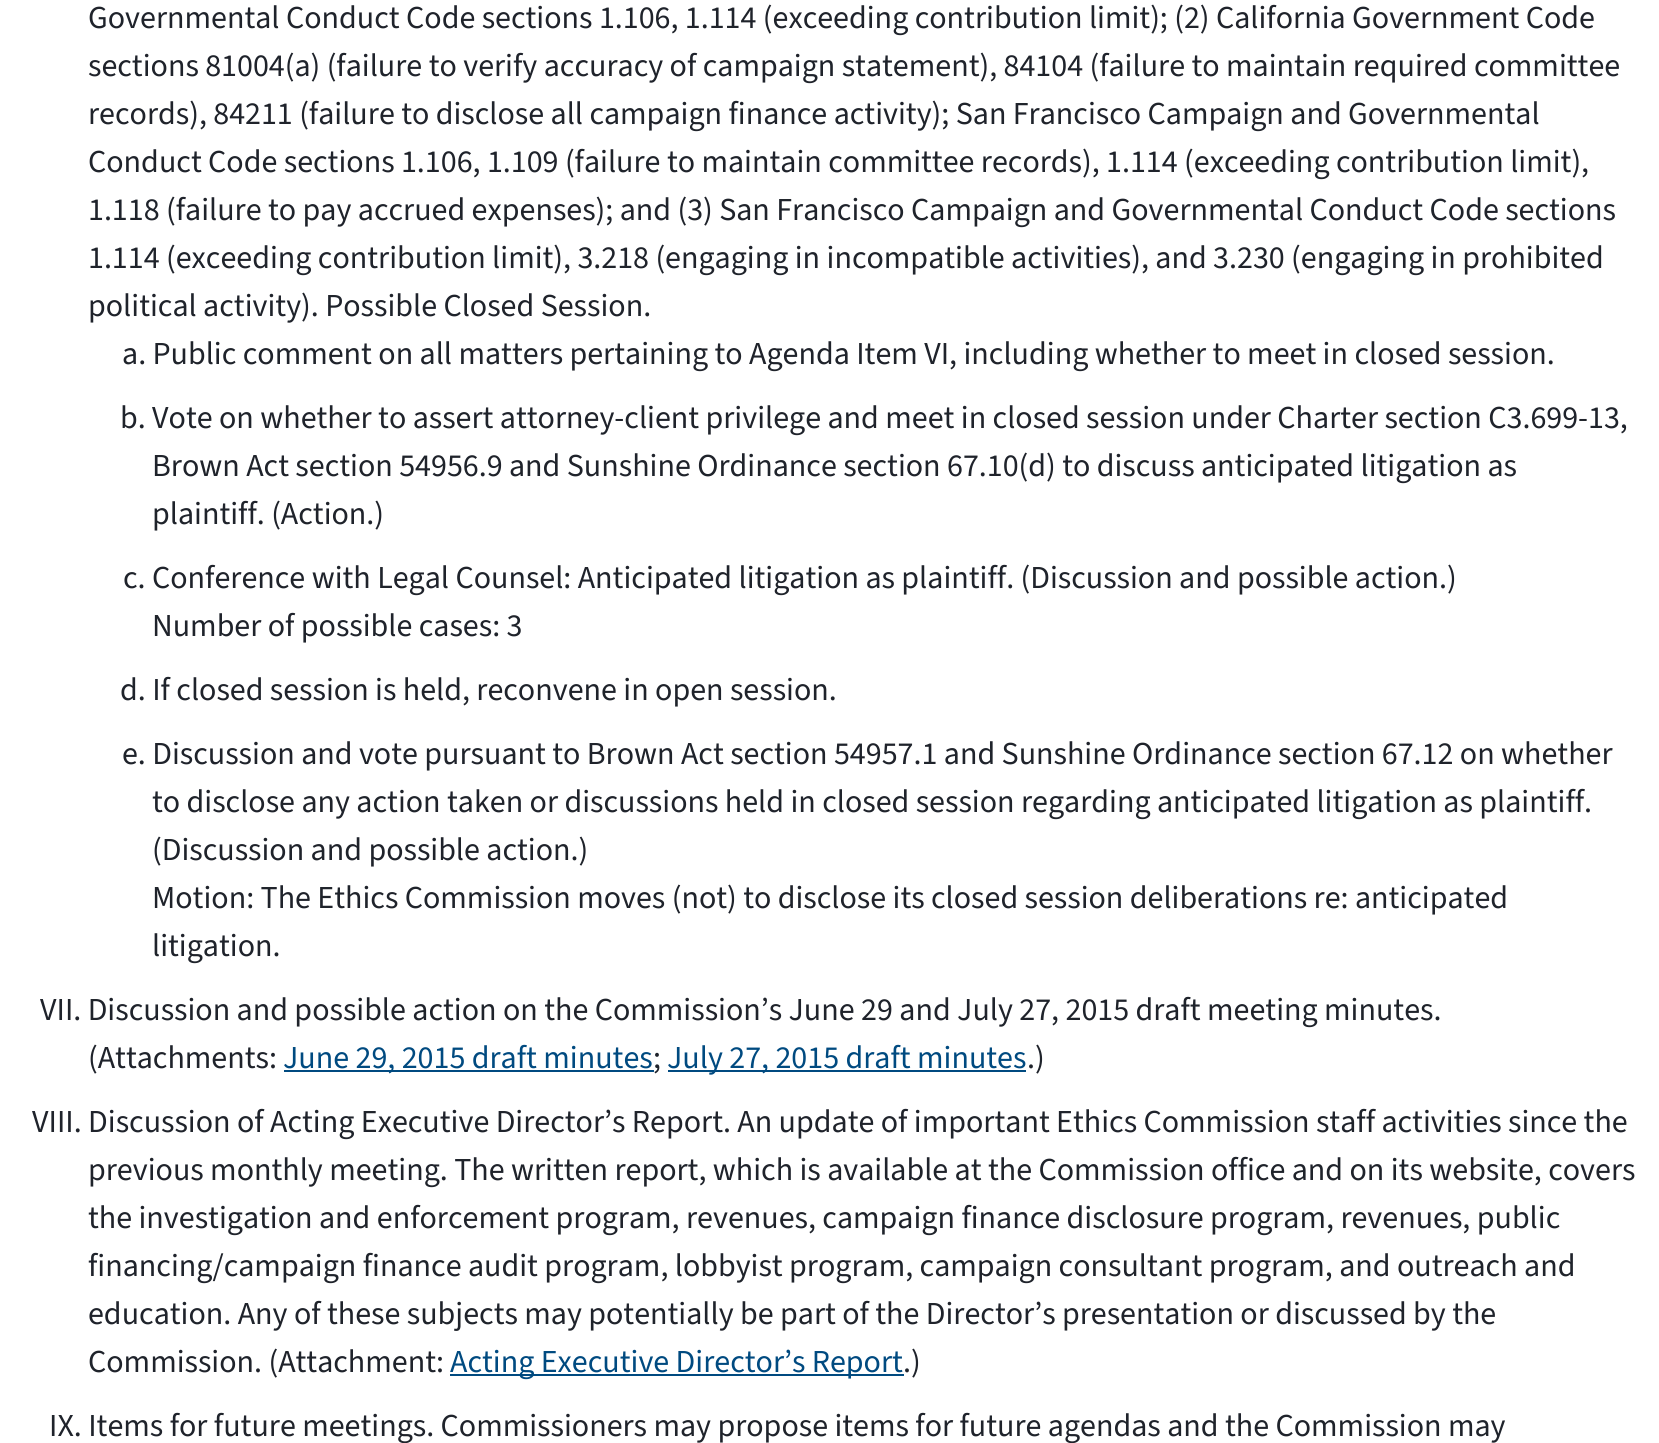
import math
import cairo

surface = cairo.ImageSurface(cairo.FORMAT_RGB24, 1659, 1443)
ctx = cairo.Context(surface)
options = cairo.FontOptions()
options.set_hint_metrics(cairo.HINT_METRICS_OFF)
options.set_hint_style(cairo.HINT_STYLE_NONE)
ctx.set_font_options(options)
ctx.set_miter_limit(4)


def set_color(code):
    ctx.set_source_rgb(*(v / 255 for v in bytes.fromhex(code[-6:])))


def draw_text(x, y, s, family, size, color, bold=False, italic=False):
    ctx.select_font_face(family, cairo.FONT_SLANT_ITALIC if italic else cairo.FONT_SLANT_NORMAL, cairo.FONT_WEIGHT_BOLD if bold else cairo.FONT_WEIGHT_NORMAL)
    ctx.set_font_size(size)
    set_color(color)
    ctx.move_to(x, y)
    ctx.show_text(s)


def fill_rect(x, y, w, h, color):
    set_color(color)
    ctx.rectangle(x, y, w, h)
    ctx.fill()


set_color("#ffffff")
ctx.paint()
draw_text(88, 28, "Governmental Conduct Code sections 1.106, 1.114 (exceeding contribution limit); (2) California Government Code", "Source Sans 3", 32, "#1f232b")
draw_text(88, 76, "sections 81004(a) (failure to verify accuracy of campaign statement), 84104 (failure to maintain required committee", "Source Sans 3", 32, "#1f232b")
draw_text(88, 124, "records), 84211 (failure to disclose all campaign finance activity); San Francisco Campaign and Governmental", "Source Sans 3", 32, "#1f232b")
draw_text(88, 172, "Conduct Code sections 1.106, 1.109 (failure to maintain committee records), 1.114 (exceeding contribution limit),", "Source Sans 3", 32, "#1f232b")
draw_text(88, 220, "1.118 (failure to pay accrued expenses); and (3) San Francisco Campaign and Governmental Conduct Code sections", "Source Sans 3", 32, "#1f232b")
draw_text(88, 268, "1.114 (exceeding contribution limit), 3.218 (engaging in incompatible activities), and 3.230 (engaging in prohibited", "Source Sans 3", 32, "#1f232b")
draw_text(88, 316, "political activity). Possible Closed Session.", "Source Sans 3", 32, "#1f232b")
draw_text(122, 364, "a. Public comment on all matters pertaining to Agenda Item VI, including whether to meet in closed session.", "Source Sans 3", 32, "#1f232b")
draw_text(120, 428, "b. Vote on whether to assert attorney-client privilege and meet in closed session under Charter section C3.699-13,", "Source Sans 3", 32, "#1f232b")
draw_text(152, 476, "Brown Act section 54956.9 and Sunshine Ordinance section 67.10(d) to discuss anticipated litigation as", "Source Sans 3", 32, "#1f232b")
draw_text(152, 524, "plaintiff. (Action.)", "Source Sans 3", 32, "#1f232b")
draw_text(123, 588, "c. Conference with Legal Counsel: Anticipated litigation as plaintiff. (Discussion and possible action.)", "Source Sans 3", 32, "#1f232b")
draw_text(152, 636, "Number of possible cases: 3", "Source Sans 3", 32, "#1f232b")
draw_text(120, 700, "d. If closed session is held, reconvene in open session.", "Source Sans 3", 32, "#1f232b")
draw_text(122, 764, "e. Discussion and vote pursuant to Brown Act section 54957.1 and Sunshine Ordinance section 67.12 on whether", "Source Sans 3", 32, "#1f232b")
draw_text(152, 812, "to disclose any action taken or discussions held in closed session regarding anticipated litigation as plaintiff.", "Source Sans 3", 32, "#1f232b")
draw_text(152, 860, "(Discussion and possible action.)", "Source Sans 3", 32, "#1f232b")
draw_text(152, 908, "Motion: The Ethics Commission moves (not) to disclose its closed session deliberations re: anticipated", "Source Sans 3", 32, "#1f232b")
draw_text(152, 956, "litigation.", "Source Sans 3", 32, "#1f232b")
draw_text(40, 1020, "VII. Discussion and possible action on the Commission’s June 29 and July 27, 2015 draft meeting minutes.", "Source Sans 3", 32, "#1f232b")
draw_text(88, 1068, "(Attachments:", "Source Sans 3", 32, "#1f232b")
fill_rect(284, 1070, 370, 2, "#004a80")
draw_text(283, 1068, "June 29, 2015 draft minutes", "Source Sans 3", 32, "#004a80")
draw_text(653, 1068, ";", "Source Sans 3", 32, "#1f232b")
fill_rect(668, 1070, 358, 2, "#004a80")
draw_text(667, 1068, "July 27, 2015 draft minutes", "Source Sans 3", 32, "#004a80")
draw_text(1027, 1068, ".)", "Source Sans 3", 32, "#1f232b")
draw_text(32, 1132, "VIII. Discussion of Acting Executive Director’s Report. An update of important Ethics Commission staff activities since the", "Source Sans 3", 32, "#1f232b")
draw_text(88, 1180, "previous monthly meeting. The written report, which is available at the Commission office and on its website, covers", "Source Sans 3", 32, "#1f232b")
draw_text(88, 1228, "the investigation and enforcement program, revenues, campaign finance disclosure program, revenues, public", "Source Sans 3", 32, "#1f232b")
draw_text(88, 1276, "financing/campaign finance audit program, lobbyist program, campaign consultant program, and outreach and", "Source Sans 3", 32, "#1f232b")
draw_text(88, 1324, "education. Any of these subjects may potentially be part of the Director’s presentation or discussed by the", "Source Sans 3", 32, "#1f232b")
draw_text(88, 1372, "Commission. (Attachment:", "Source Sans 3", 32, "#1f232b")
fill_rect(450, 1374, 454, 2, "#004a80")
draw_text(450, 1372, "Acting Executive Director’s Report", "Source Sans 3", 32, "#004a80")
draw_text(903, 1372, ".)", "Source Sans 3", 32, "#1f232b")
draw_text(49, 1436, "IX. Items for future meetings. Commissioners may propose items for future agendas and the Commission may", "Source Sans 3", 32, "#1f232b")
surface.write_to_png("output.png")
